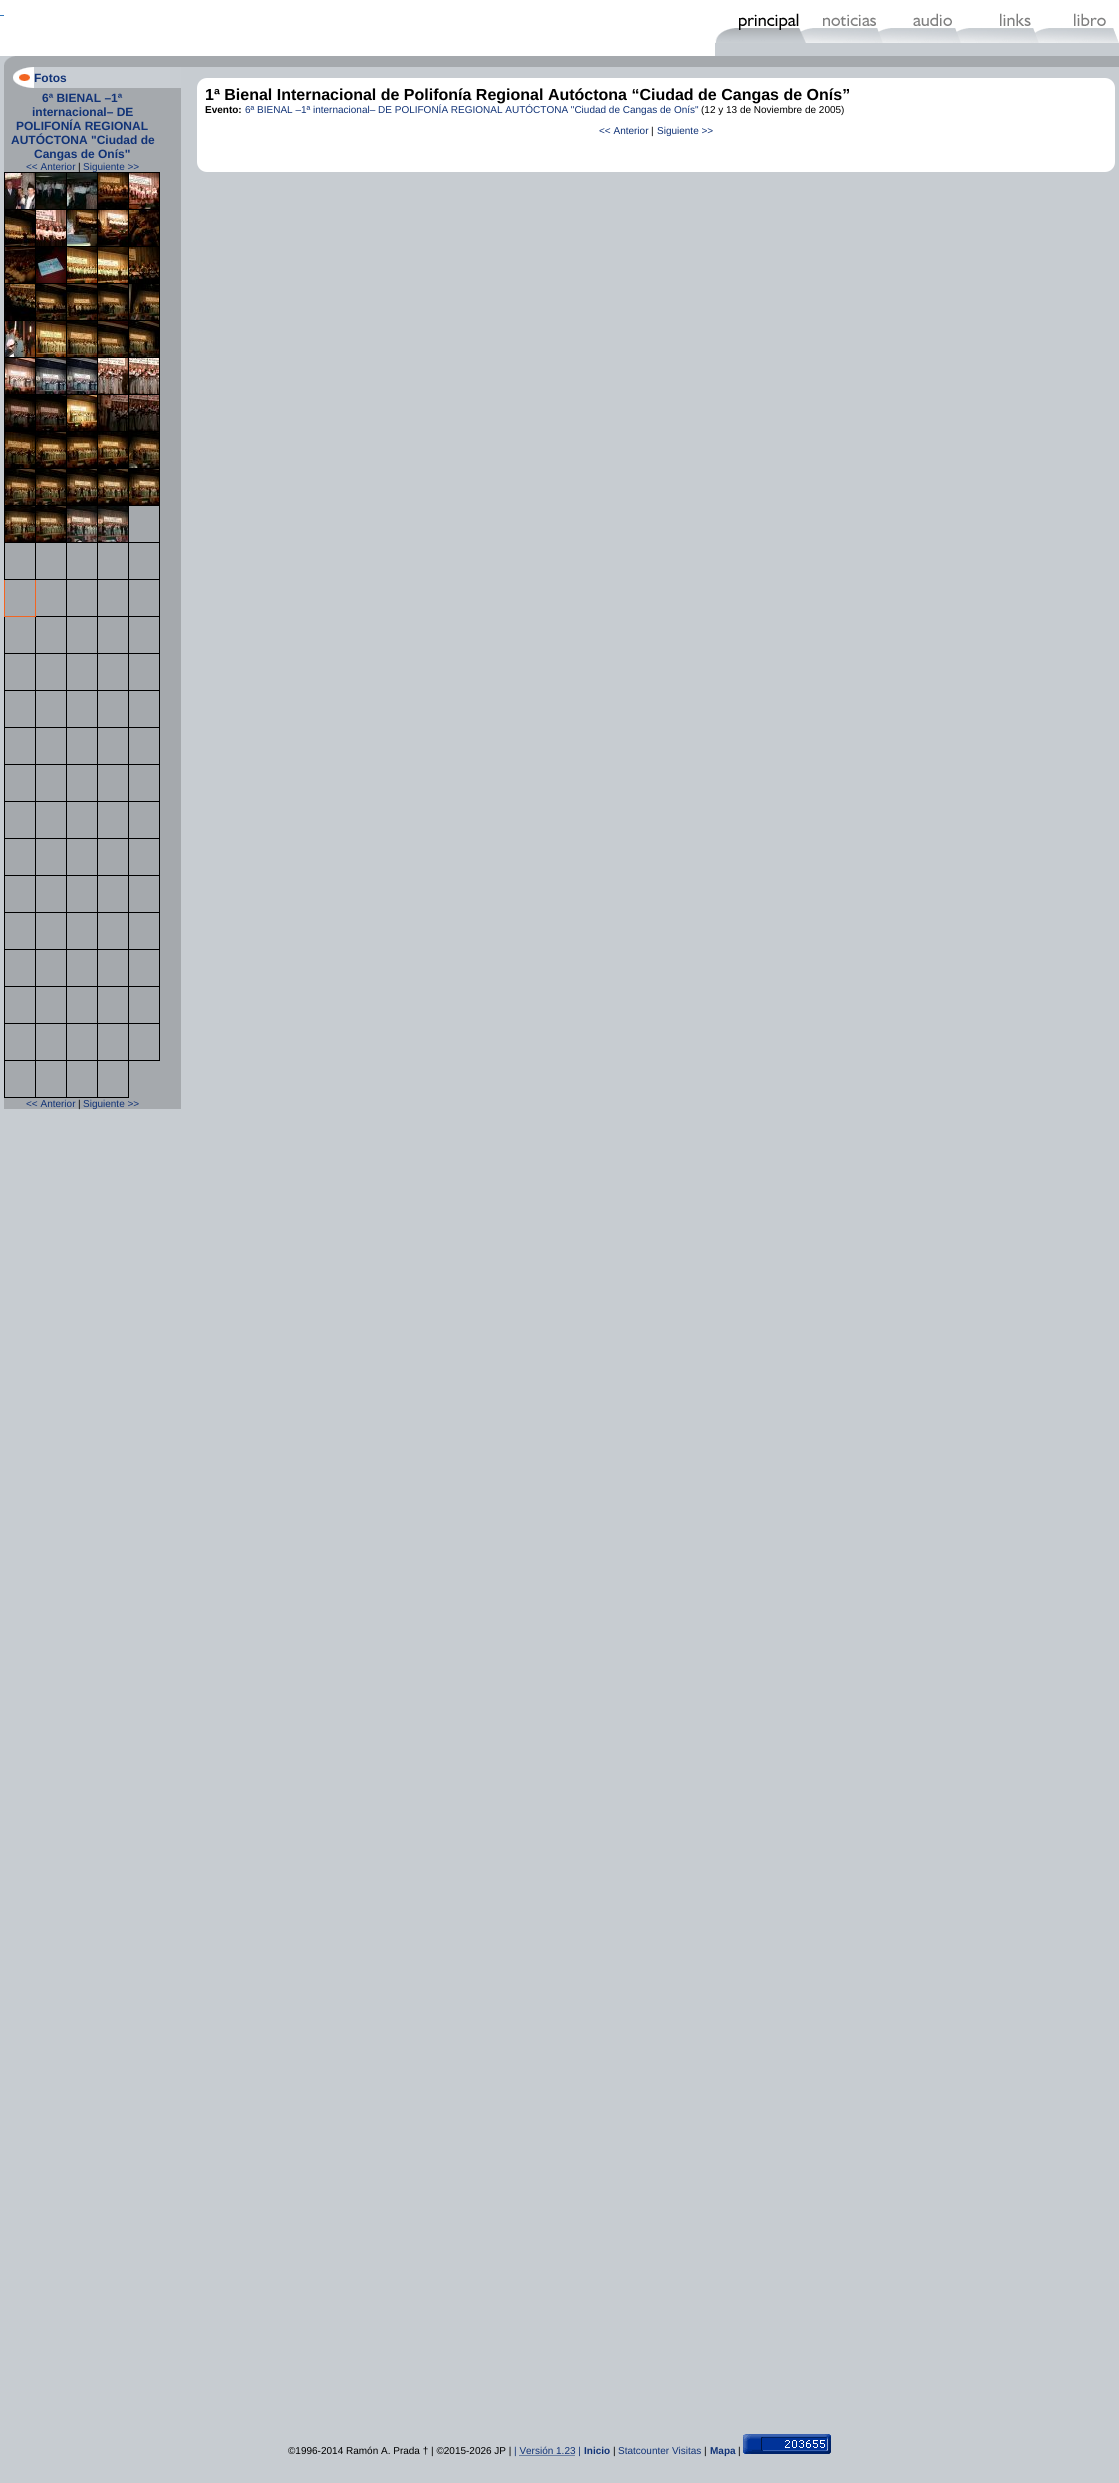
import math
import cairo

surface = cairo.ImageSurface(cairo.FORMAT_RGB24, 1119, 2483)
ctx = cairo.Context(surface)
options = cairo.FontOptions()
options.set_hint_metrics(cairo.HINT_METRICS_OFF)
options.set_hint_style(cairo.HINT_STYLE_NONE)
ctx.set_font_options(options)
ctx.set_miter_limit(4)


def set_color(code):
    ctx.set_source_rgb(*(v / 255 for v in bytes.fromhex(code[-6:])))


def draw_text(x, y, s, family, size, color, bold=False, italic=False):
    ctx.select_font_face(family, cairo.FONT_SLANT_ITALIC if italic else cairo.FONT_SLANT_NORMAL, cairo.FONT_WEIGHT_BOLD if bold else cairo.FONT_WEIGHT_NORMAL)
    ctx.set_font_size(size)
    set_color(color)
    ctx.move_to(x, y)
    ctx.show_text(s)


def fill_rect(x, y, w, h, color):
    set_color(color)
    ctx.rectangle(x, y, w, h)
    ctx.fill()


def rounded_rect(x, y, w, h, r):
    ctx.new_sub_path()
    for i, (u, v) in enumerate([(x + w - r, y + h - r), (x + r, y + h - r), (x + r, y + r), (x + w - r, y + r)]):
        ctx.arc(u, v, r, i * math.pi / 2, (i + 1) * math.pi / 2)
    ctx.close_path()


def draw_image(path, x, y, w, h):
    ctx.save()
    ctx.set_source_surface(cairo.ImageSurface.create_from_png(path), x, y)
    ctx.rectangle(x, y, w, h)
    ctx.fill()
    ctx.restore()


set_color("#ffffff")
ctx.paint()
fill_rect(0, 15, 4, 1, "#3377bb")
draw_image("assets/img1.png", 715, 13, 404, 30)
fill_rect(715, 43, 404, 13, "#c7ccd1")
fill_rect(0, 56, 1119, 2378, "#c7ccd1")
fill_rect(4, 56, 1115, 11, "#a5a9ad")
draw_image("assets/img2.png", 4, 56, 11, 9)
fill_rect(4, 67, 177, 1042, "#a5a9ad")
draw_image("assets/img3.png", 13, 67, 21, 21)
fill_rect(34, 67, 136, 21, "#c9ced3")
draw_text(34, 82, "Fotos", "Liberation Sans", 12, "#113377", bold=True)
fill_rect(170, 67, 11, 21, "#c8cdd2")
draw_text(42, 102, "6ª BIENAL –1ª", "Liberation Sans", 12, "#113377", bold=True)
draw_text(32, 116, "internacional– DE", "Liberation Sans", 12, "#113377", bold=True)
draw_text(16, 130, "POLIFONÍA REGIONAL", "Liberation Sans", 12, "#113377", bold=True)
draw_text(11, 144, "AUTÓCTONA \"Ciudad de", "Liberation Sans", 12, "#113377", bold=True)
draw_text(34, 158, "Cangas de Onís\"", "Liberation Sans", 12, "#113377", bold=True)
draw_text(26, 170, "<< Anterior", "Liberation Sans", 10, "#113377")
fill_rect(128, 172, 32, 1, "#000000")
fill_rect(128, 209, 32, 1, "#000000")
fill_rect(128, 246, 32, 1, "#000000")
fill_rect(128, 283, 32, 1, "#000000")
fill_rect(128, 320, 32, 1, "#000000")
fill_rect(128, 357, 32, 1, "#000000")
fill_rect(128, 394, 32, 1, "#000000")
fill_rect(128, 431, 32, 1, "#000000")
fill_rect(128, 468, 32, 1, "#000000")
fill_rect(128, 505, 32, 1, "#000000")
fill_rect(128, 542, 32, 1, "#000000")
fill_rect(128, 579, 32, 1, "#000000")
fill_rect(128, 616, 32, 1, "#000000")
fill_rect(128, 653, 32, 1, "#000000")
fill_rect(128, 690, 32, 1, "#000000")
fill_rect(128, 727, 32, 1, "#000000")
fill_rect(128, 764, 32, 1, "#000000")
fill_rect(128, 801, 32, 1, "#000000")
fill_rect(128, 838, 32, 1, "#000000")
fill_rect(128, 875, 32, 1, "#000000")
fill_rect(128, 912, 32, 1, "#000000")
fill_rect(128, 949, 32, 1, "#000000")
fill_rect(128, 986, 32, 1, "#000000")
fill_rect(128, 1023, 32, 1, "#000000")
fill_rect(159, 1023, 1, 38, "#000000")
fill_rect(97, 1060, 32, 1, "#000000")
fill_rect(128, 1060, 1, 38, "#000000")
fill_rect(128, 1060, 32, 1, "#000000")
fill_rect(128, 1023, 1, 38, "#000000")
fill_rect(97, 1023, 32, 1, "#000000")
fill_rect(128, 986, 1, 38, "#000000")
fill_rect(97, 986, 32, 1, "#000000")
fill_rect(128, 949, 1, 38, "#000000")
fill_rect(97, 949, 32, 1, "#000000")
fill_rect(128, 912, 1, 38, "#000000")
fill_rect(97, 912, 32, 1, "#000000")
fill_rect(128, 875, 1, 38, "#000000")
fill_rect(97, 875, 32, 1, "#000000")
fill_rect(128, 838, 1, 38, "#000000")
fill_rect(97, 838, 32, 1, "#000000")
fill_rect(128, 801, 1, 38, "#000000")
fill_rect(97, 801, 32, 1, "#000000")
fill_rect(128, 764, 1, 38, "#000000")
fill_rect(97, 764, 32, 1, "#000000")
fill_rect(128, 727, 1, 38, "#000000")
fill_rect(97, 727, 32, 1, "#000000")
fill_rect(128, 690, 1, 38, "#000000")
fill_rect(97, 690, 32, 1, "#000000")
fill_rect(128, 653, 1, 38, "#000000")
fill_rect(97, 653, 32, 1, "#000000")
fill_rect(128, 616, 1, 38, "#000000")
fill_rect(97, 616, 32, 1, "#000000")
fill_rect(128, 579, 1, 38, "#000000")
fill_rect(97, 579, 32, 1, "#000000")
fill_rect(128, 542, 1, 38, "#000000")
fill_rect(97, 542, 32, 1, "#000000")
fill_rect(128, 505, 1, 38, "#000000")
fill_rect(97, 505, 32, 1, "#000000")
fill_rect(128, 468, 1, 38, "#000000")
fill_rect(97, 468, 32, 1, "#000000")
fill_rect(128, 431, 1, 38, "#000000")
fill_rect(97, 431, 32, 1, "#000000")
fill_rect(128, 394, 1, 38, "#000000")
fill_rect(97, 394, 32, 1, "#000000")
fill_rect(128, 357, 1, 38, "#000000")
fill_rect(97, 357, 32, 1, "#000000")
fill_rect(128, 320, 1, 38, "#000000")
fill_rect(97, 320, 32, 1, "#000000")
fill_rect(128, 283, 1, 38, "#000000")
fill_rect(97, 283, 32, 1, "#000000")
fill_rect(128, 246, 1, 38, "#000000")
fill_rect(97, 246, 32, 1, "#000000")
fill_rect(128, 209, 1, 38, "#000000")
fill_rect(97, 209, 32, 1, "#000000")
fill_rect(128, 172, 1, 38, "#000000")
fill_rect(97, 172, 32, 1, "#000000")
fill_rect(97, 1097, 32, 1, "#000000")
fill_rect(97, 1060, 1, 38, "#000000")
fill_rect(66, 1060, 32, 1, "#000000")
fill_rect(97, 1023, 1, 38, "#000000")
fill_rect(66, 1023, 32, 1, "#000000")
fill_rect(97, 986, 1, 38, "#000000")
fill_rect(66, 986, 32, 1, "#000000")
fill_rect(97, 949, 1, 38, "#000000")
fill_rect(66, 949, 32, 1, "#000000")
fill_rect(97, 912, 1, 38, "#000000")
fill_rect(66, 912, 32, 1, "#000000")
fill_rect(97, 875, 1, 38, "#000000")
fill_rect(66, 875, 32, 1, "#000000")
fill_rect(97, 838, 1, 38, "#000000")
fill_rect(66, 838, 32, 1, "#000000")
fill_rect(97, 801, 1, 38, "#000000")
fill_rect(66, 801, 32, 1, "#000000")
fill_rect(97, 764, 1, 38, "#000000")
fill_rect(66, 764, 32, 1, "#000000")
fill_rect(97, 727, 1, 38, "#000000")
fill_rect(66, 727, 32, 1, "#000000")
fill_rect(97, 690, 1, 38, "#000000")
fill_rect(66, 690, 32, 1, "#000000")
fill_rect(97, 653, 1, 38, "#000000")
fill_rect(66, 653, 32, 1, "#000000")
fill_rect(97, 616, 1, 38, "#000000")
fill_rect(66, 616, 32, 1, "#000000")
fill_rect(97, 579, 1, 38, "#000000")
fill_rect(66, 579, 32, 1, "#000000")
fill_rect(97, 542, 1, 38, "#000000")
fill_rect(66, 542, 32, 1, "#000000")
fill_rect(97, 505, 1, 38, "#000000")
fill_rect(66, 505, 32, 1, "#000000")
fill_rect(97, 468, 1, 38, "#000000")
fill_rect(66, 468, 32, 1, "#000000")
fill_rect(97, 431, 1, 38, "#000000")
fill_rect(66, 431, 32, 1, "#000000")
fill_rect(97, 394, 1, 38, "#000000")
fill_rect(66, 394, 32, 1, "#000000")
fill_rect(97, 357, 1, 38, "#000000")
fill_rect(66, 357, 32, 1, "#000000")
fill_rect(97, 320, 1, 38, "#000000")
fill_rect(66, 320, 32, 1, "#000000")
fill_rect(97, 283, 1, 38, "#000000")
fill_rect(66, 283, 32, 1, "#000000")
fill_rect(97, 246, 1, 38, "#000000")
fill_rect(66, 246, 32, 1, "#000000")
fill_rect(97, 209, 1, 38, "#000000")
fill_rect(66, 209, 32, 1, "#000000")
fill_rect(97, 172, 1, 38, "#000000")
fill_rect(66, 172, 32, 1, "#000000")
draw_text(78, 170, "|", "Liberation Sans", 10, "#000000")
draw_text(83, 170, "Siguiente >>", "Liberation Sans", 10, "#113377")
fill_rect(66, 1097, 32, 1, "#000000")
fill_rect(66, 1060, 1, 38, "#000000")
fill_rect(35, 1060, 32, 1, "#000000")
fill_rect(66, 1023, 1, 38, "#000000")
fill_rect(35, 1023, 32, 1, "#000000")
fill_rect(66, 986, 1, 38, "#000000")
fill_rect(35, 986, 32, 1, "#000000")
fill_rect(66, 949, 1, 38, "#000000")
fill_rect(35, 949, 32, 1, "#000000")
fill_rect(66, 912, 1, 38, "#000000")
fill_rect(35, 912, 32, 1, "#000000")
fill_rect(66, 875, 1, 38, "#000000")
fill_rect(35, 875, 32, 1, "#000000")
fill_rect(66, 838, 1, 38, "#000000")
fill_rect(35, 838, 32, 1, "#000000")
fill_rect(66, 801, 1, 38, "#000000")
fill_rect(35, 801, 32, 1, "#000000")
fill_rect(66, 764, 1, 38, "#000000")
fill_rect(35, 764, 32, 1, "#000000")
fill_rect(66, 727, 1, 38, "#000000")
fill_rect(35, 727, 32, 1, "#000000")
fill_rect(66, 690, 1, 38, "#000000")
fill_rect(35, 690, 32, 1, "#000000")
fill_rect(66, 653, 1, 38, "#000000")
fill_rect(35, 653, 32, 1, "#000000")
fill_rect(66, 616, 1, 38, "#000000")
fill_rect(35, 616, 32, 1, "#000000")
fill_rect(66, 579, 1, 38, "#000000")
fill_rect(66, 542, 1, 38, "#000000")
fill_rect(35, 542, 32, 1, "#000000")
fill_rect(66, 505, 1, 38, "#000000")
fill_rect(35, 505, 32, 1, "#000000")
fill_rect(66, 468, 1, 38, "#000000")
fill_rect(35, 468, 32, 1, "#000000")
fill_rect(66, 431, 1, 38, "#000000")
fill_rect(35, 431, 32, 1, "#000000")
fill_rect(66, 394, 1, 38, "#000000")
fill_rect(35, 394, 32, 1, "#000000")
fill_rect(66, 357, 1, 38, "#000000")
fill_rect(35, 357, 32, 1, "#000000")
fill_rect(66, 320, 1, 38, "#000000")
fill_rect(35, 320, 32, 1, "#000000")
fill_rect(66, 283, 1, 38, "#000000")
fill_rect(35, 283, 32, 1, "#000000")
fill_rect(66, 246, 1, 38, "#000000")
fill_rect(35, 246, 32, 1, "#000000")
fill_rect(66, 209, 1, 38, "#000000")
fill_rect(35, 209, 32, 1, "#000000")
fill_rect(66, 172, 1, 38, "#000000")
fill_rect(35, 172, 32, 1, "#000000")
fill_rect(35, 1097, 32, 1, "#000000")
fill_rect(35, 1060, 1, 38, "#000000")
fill_rect(4, 1060, 32, 1, "#000000")
fill_rect(35, 1023, 1, 38, "#000000")
fill_rect(4, 1023, 32, 1, "#000000")
fill_rect(35, 986, 1, 38, "#000000")
fill_rect(4, 986, 32, 1, "#000000")
fill_rect(35, 949, 1, 38, "#000000")
fill_rect(4, 949, 32, 1, "#000000")
fill_rect(35, 912, 1, 38, "#000000")
fill_rect(4, 912, 32, 1, "#000000")
fill_rect(35, 875, 1, 38, "#000000")
fill_rect(4, 875, 32, 1, "#000000")
fill_rect(35, 838, 1, 38, "#000000")
fill_rect(4, 838, 32, 1, "#000000")
fill_rect(35, 801, 1, 38, "#000000")
fill_rect(4, 801, 32, 1, "#000000")
fill_rect(35, 764, 1, 38, "#000000")
fill_rect(4, 764, 32, 1, "#000000")
fill_rect(35, 727, 1, 38, "#000000")
fill_rect(4, 727, 32, 1, "#000000")
fill_rect(35, 690, 1, 38, "#000000")
fill_rect(4, 690, 32, 1, "#000000")
fill_rect(35, 653, 1, 38, "#000000")
fill_rect(4, 653, 32, 1, "#000000")
fill_rect(35, 616, 1, 38, "#000000")
fill_rect(35, 579, 1, 38, "#f26522")
fill_rect(35, 579, 32, 1, "#000000")
fill_rect(35, 542, 1, 38, "#000000")
fill_rect(4, 542, 32, 1, "#000000")
fill_rect(35, 505, 1, 38, "#000000")
fill_rect(4, 505, 32, 1, "#000000")
fill_rect(35, 468, 1, 38, "#000000")
fill_rect(4, 468, 32, 1, "#000000")
fill_rect(35, 431, 1, 38, "#000000")
fill_rect(4, 431, 32, 1, "#000000")
fill_rect(35, 394, 1, 38, "#000000")
fill_rect(4, 394, 32, 1, "#000000")
fill_rect(35, 357, 1, 38, "#000000")
fill_rect(4, 357, 32, 1, "#000000")
fill_rect(35, 320, 1, 38, "#000000")
fill_rect(4, 320, 32, 1, "#000000")
fill_rect(35, 283, 1, 38, "#000000")
fill_rect(4, 283, 32, 1, "#000000")
fill_rect(35, 246, 1, 38, "#000000")
fill_rect(4, 246, 32, 1, "#000000")
fill_rect(35, 209, 1, 38, "#000000")
fill_rect(4, 209, 32, 1, "#000000")
fill_rect(35, 172, 1, 38, "#000000")
fill_rect(4, 172, 32, 1, "#000000")
fill_rect(4, 1097, 32, 1, "#000000")
fill_rect(4, 1060, 1, 38, "#000000")
fill_rect(4, 1023, 1, 38, "#000000")
fill_rect(4, 986, 1, 38, "#000000")
fill_rect(4, 949, 1, 38, "#000000")
fill_rect(4, 912, 1, 38, "#000000")
fill_rect(4, 875, 1, 38, "#000000")
fill_rect(4, 838, 1, 38, "#000000")
fill_rect(4, 801, 1, 38, "#000000")
fill_rect(4, 764, 1, 38, "#000000")
fill_rect(4, 727, 1, 38, "#000000")
fill_rect(4, 690, 1, 38, "#000000")
fill_rect(4, 616, 1, 75, "#000000")
fill_rect(4, 616, 32, 1, "#f26522")
fill_rect(4, 579, 1, 38, "#f26522")
fill_rect(4, 579, 32, 1, "#000000")
fill_rect(4, 542, 1, 38, "#000000")
fill_rect(4, 505, 1, 38, "#000000")
fill_rect(4, 468, 1, 38, "#000000")
fill_rect(4, 431, 1, 38, "#000000")
fill_rect(4, 394, 1, 38, "#000000")
fill_rect(4, 357, 1, 38, "#000000")
fill_rect(4, 320, 1, 38, "#000000")
fill_rect(4, 283, 1, 38, "#000000")
fill_rect(4, 246, 1, 38, "#000000")
fill_rect(4, 209, 1, 38, "#000000")
fill_rect(4, 172, 1, 38, "#000000")
draw_image("assets/img4.png", 5, 173, 30, 36)
draw_image("assets/img5.png", 36, 173, 30, 36)
draw_image("assets/img6.png", 67, 173, 30, 36)
draw_image("assets/img7.png", 98, 173, 30, 36)
fill_rect(159, 986, 1, 38, "#000000")
fill_rect(159, 949, 1, 38, "#000000")
fill_rect(159, 912, 1, 38, "#000000")
fill_rect(159, 875, 1, 38, "#000000")
fill_rect(159, 838, 1, 38, "#000000")
fill_rect(159, 801, 1, 38, "#000000")
fill_rect(159, 764, 1, 38, "#000000")
fill_rect(159, 727, 1, 38, "#000000")
fill_rect(159, 690, 1, 38, "#000000")
fill_rect(159, 653, 1, 38, "#000000")
fill_rect(159, 616, 1, 38, "#000000")
fill_rect(159, 579, 1, 38, "#000000")
fill_rect(159, 542, 1, 38, "#000000")
fill_rect(159, 505, 1, 38, "#000000")
fill_rect(159, 468, 1, 38, "#000000")
fill_rect(159, 431, 1, 38, "#000000")
fill_rect(159, 394, 1, 38, "#000000")
fill_rect(159, 357, 1, 38, "#000000")
fill_rect(159, 320, 1, 38, "#000000")
fill_rect(159, 283, 1, 38, "#000000")
fill_rect(159, 246, 1, 38, "#000000")
fill_rect(159, 209, 1, 38, "#000000")
fill_rect(159, 172, 1, 38, "#000000")
draw_image("assets/img8.png", 129, 173, 30, 36)
draw_image("assets/img9.png", 5, 210, 30, 36)
draw_image("assets/img10.png", 36, 210, 30, 36)
draw_image("assets/img11.png", 67, 210, 30, 36)
draw_image("assets/img12.png", 98, 210, 30, 36)
draw_image("assets/img13.png", 129, 210, 30, 36)
draw_image("assets/img14.png", 5, 247, 30, 36)
draw_image("assets/img15.png", 36, 247, 30, 36)
draw_image("assets/img16.png", 67, 247, 30, 36)
draw_image("assets/img17.png", 98, 247, 30, 36)
draw_image("assets/img18.png", 129, 247, 30, 36)
draw_image("assets/img19.png", 5, 284, 30, 36)
draw_image("assets/img20.png", 36, 284, 30, 36)
draw_image("assets/img21.png", 67, 284, 30, 36)
draw_image("assets/img22.png", 98, 284, 30, 36)
draw_image("assets/img23.png", 129, 284, 30, 36)
draw_image("assets/img24.png", 5, 321, 30, 36)
draw_image("assets/img25.png", 36, 321, 30, 36)
draw_image("assets/img26.png", 67, 321, 30, 36)
draw_image("assets/img27.png", 98, 321, 30, 36)
draw_image("assets/img28.png", 129, 321, 30, 36)
draw_image("assets/img29.png", 5, 358, 30, 36)
draw_image("assets/img30.png", 36, 358, 30, 36)
draw_image("assets/img31.png", 67, 358, 30, 36)
draw_image("assets/img32.png", 98, 358, 30, 36)
draw_image("assets/img33.png", 129, 358, 30, 36)
draw_image("assets/img34.png", 5, 395, 30, 36)
draw_image("assets/img35.png", 36, 395, 30, 36)
draw_image("assets/img36.png", 67, 395, 30, 36)
draw_image("assets/img37.png", 98, 395, 30, 36)
draw_image("assets/img38.png", 129, 395, 30, 36)
draw_image("assets/img39.png", 5, 432, 30, 36)
draw_image("assets/img40.png", 36, 432, 30, 36)
draw_image("assets/img41.png", 67, 432, 30, 36)
draw_image("assets/img42.png", 98, 432, 30, 36)
draw_image("assets/img43.png", 129, 432, 30, 36)
draw_image("assets/img44.png", 5, 469, 30, 36)
draw_image("assets/img45.png", 36, 469, 30, 36)
draw_image("assets/img46.png", 67, 469, 30, 36)
draw_image("assets/img47.png", 98, 469, 30, 36)
draw_image("assets/img48.png", 129, 469, 30, 36)
draw_image("assets/img49.png", 5, 506, 30, 36)
draw_image("assets/img50.png", 36, 506, 30, 36)
draw_image("assets/img51.png", 67, 506, 30, 36)
draw_image("assets/img52.png", 98, 506, 30, 36)
draw_text(26, 1107, "<< Anterior", "Liberation Sans", 10, "#113377")
draw_text(78, 1107, "|", "Liberation Sans", 10, "#000000")
draw_text(83, 1107, "Siguiente >>", "Liberation Sans", 10, "#113377")
set_color("#ffffff")
rounded_rect(197, 78, 918, 94, 10)
ctx.fill()
draw_text(205, 100, "1ª Bienal Internacional de Polifonía Regional Autóctona “Ciudad de Cangas de Onís”", "Liberation Sans", 16, "#000000", bold=True)
draw_text(205, 113, "Evento:", "Liberation Sans", 10, "#000000", bold=True)
draw_text(245, 113, "6ª BIENAL –1ª internacional– DE POLIFONÍA REGIONAL AUTÓCTONA \"Ciudad de Cangas de Onís\"", "Liberation Sans", 10, "#113377")
draw_text(701, 113, "(12 y 13 de Noviembre de 2005)", "Liberation Sans", 10, "#000000")
draw_text(599, 134, "<< Anterior", "Liberation Sans", 10, "#113377")
draw_text(651, 134, "|", "Liberation Sans", 10, "#000000")
draw_text(657, 134, "Siguiente >>", "Liberation Sans", 10, "#113377")
fill_rect(0, 2434, 1119, 49, "#c7ccd1")
draw_text(288, 2454, "©1996-2014 Ramón A. Prada † | ©2015-2026 JP |", "Liberation Sans", 10, "#000000")
draw_text(514, 2454, "| Versión 1.23 |", "Liberation Sans", 10, "#113377")
ctx.new_path()
ctx.move_to(519.5, 2455.5)
ctx.line_to(575.5, 2455.5)
ctx.set_line_width(1)
ctx.set_dash([1, 1])
ctx.stroke()
draw_text(584, 2454, "Inicio", "Liberation Sans", 10, "#113377", bold=True)
draw_text(613, 2454, "|", "Liberation Sans", 10, "#000000")
draw_text(618, 2454, "Statcounter Visitas", "Liberation Sans", 10, "#113377")
draw_text(704, 2454, "|", "Liberation Sans", 10, "#000000")
draw_text(710, 2454, "Mapa", "Liberation Sans", 10, "#113377", bold=True)
draw_text(738, 2454, "|", "Liberation Sans", 10, "#000000")
draw_image("assets/img53.png", 743, 2434, 88, 20)
surface.write_to_png("output.png")
